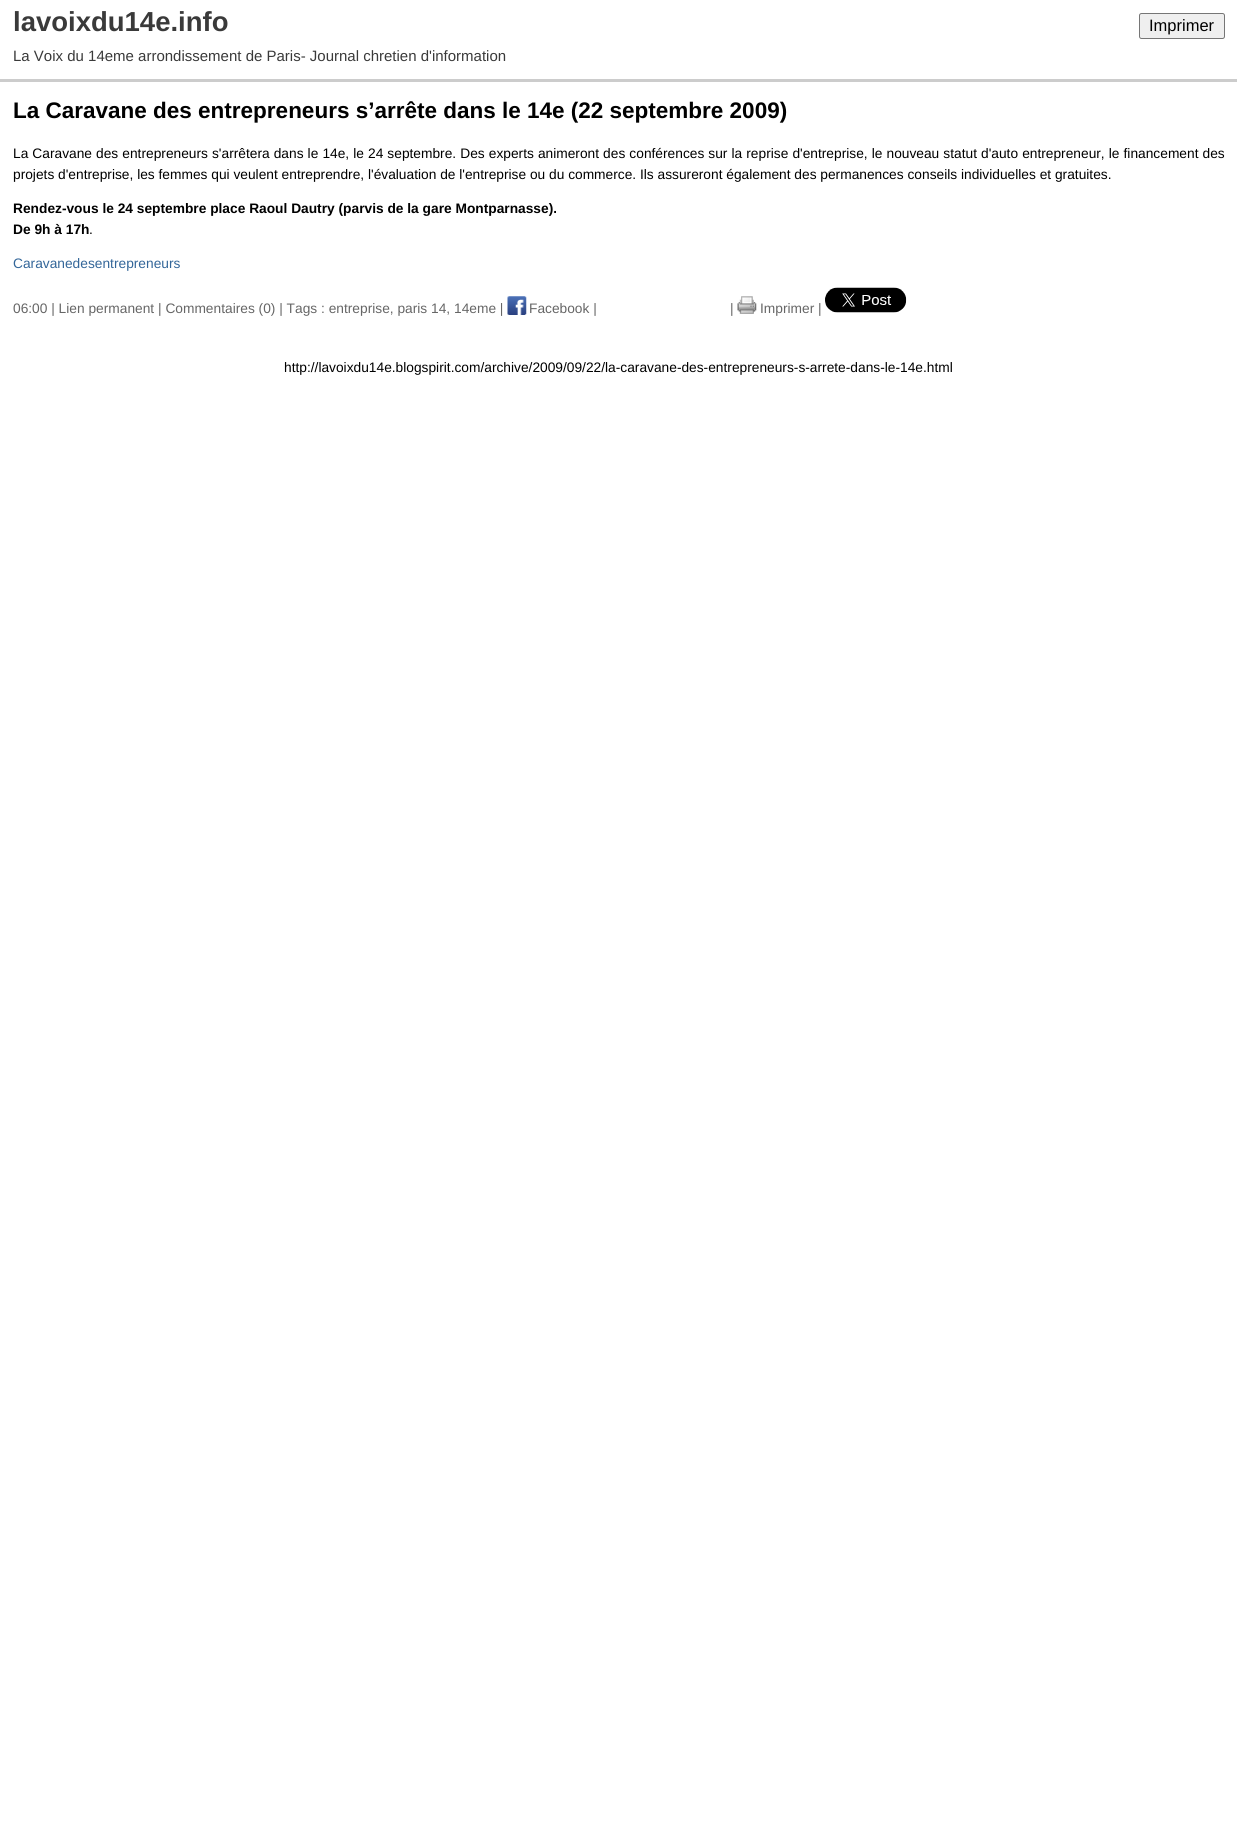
import math
import cairo

surface = cairo.ImageSurface(cairo.FORMAT_RGB24, 1237, 1841)
ctx = cairo.Context(surface)
options = cairo.FontOptions()
options.set_hint_metrics(cairo.HINT_METRICS_OFF)
options.set_hint_style(cairo.HINT_STYLE_NONE)
ctx.set_font_options(options)
ctx.set_miter_limit(4)


def set_color(code):
    ctx.set_source_rgb(*(v / 255 for v in bytes.fromhex(code[-6:])))


def draw_text(x, y, s, family, size, color, bold=False, italic=False):
    ctx.select_font_face(family, cairo.FONT_SLANT_ITALIC if italic else cairo.FONT_SLANT_NORMAL, cairo.FONT_WEIGHT_BOLD if bold else cairo.FONT_WEIGHT_NORMAL)
    ctx.set_font_size(size)
    set_color(color)
    ctx.move_to(x, y)
    ctx.show_text(s)


def draw_spaced(x, y, s, letter, word):
    ctx.move_to(x, y)
    for ch in s:
        ctx.show_text(ch)
        ctx.rel_move_to(letter + word * (ch == ' '), 0)


def fill_rect(x, y, w, h, color):
    set_color(color)
    ctx.rectangle(x, y, w, h)
    ctx.fill()


def rounded_rect(x, y, w, h, r):
    ctx.new_sub_path()
    for i, (u, v) in enumerate([(x + w - r, y + h - r), (x + r, y + h - r), (x + r, y + r), (x + w - r, y + r)]):
        ctx.arc(u, v, r, i * math.pi / 2, (i + 1) * math.pi / 2)
    ctx.close_path()


def draw_image(path, x, y, w, h):
    ctx.save()
    ctx.set_source_surface(cairo.ImageSurface.create_from_png(path), x, y)
    ctx.rectangle(x, y, w, h)
    ctx.fill()
    ctx.restore()


set_color("#ffffff")
ctx.paint()
fill_rect(0, 79, 1237, 3, "#cccccc")
draw_text(13, 31, "lavoixdu14e.info", "Liberation Sans", 27.5, "#3a3a3a", bold=True)
set_color("#efefef")
rounded_rect(1139.5, 13.5, 85, 25, 2)
ctx.fill_preserve()
set_color("#767676")
ctx.set_line_width(1)
ctx.stroke()
draw_text(1149, 31, "Imprimer", "Liberation Sans", 16.5, "#000000")
draw_text(13, 61, "La Voix du 14eme arrondissement de Paris- Journal chretien d'information", "Liberation Sans", 15, "#3a3a3a")
draw_text(13, 118, "La Caravane des entrepreneurs s’arrête dans le 14e (22 septembre 2009)", "Liberation Sans", 22.5, "#000000", bold=True)
ctx.select_font_face("Liberation Sans")
ctx.set_font_size(13.75)
draw_spaced(13, 158, "La Caravane des entrepreneurs s'arrêtera dans le 14e, le 24 septembre. Des experts animeront des conférences sur la reprise d'entreprise, le nouveau statut d'auto entrepreneur, le financement des", 0, 0.25)
draw_text(13, 179, "projets d'entreprise, les femmes qui veulent entreprendre, l'évaluation de l'entreprise ou du commerce. Ils assureront également des permanences conseils individuelles et gratuites.", "Liberation Sans", 13.75, "#000000")
draw_text(13, 213, "Rendez-vous le 24 septembre place Raoul Dautry (parvis de la gare Montparnasse).", "Liberation Sans", 13.75, "#000000", bold=True)
draw_text(13, 234, "De 9h à 17h", "Liberation Sans", 13.75, "#000000", bold=True)
draw_text(89, 234, ".", "Liberation Sans", 13.75, "#000000")
draw_text(13, 268, "Caravanedesentrepreneurs", "Liberation Sans", 13.75, "#336699")
draw_text(13, 313, "06:00 | Lien permanent | Commentaires (0) | Tags : entreprise, paris 14, 14eme |", "Liberation Sans", 13.75, "#666666")
draw_image("assets/img1.png", 507, 296, 20, 19)
draw_text(529, 313, "Facebook |", "Liberation Sans", 13.75, "#666666")
draw_text(730, 313, "|", "Liberation Sans", 13.75, "#666666")
draw_image("assets/img2.png", 737, 296, 20, 18)
draw_text(760, 313, "Imprimer |", "Liberation Sans", 13.75, "#666666")
draw_image("assets/img3.png", 825, 287, 82, 26)
draw_text(284, 372, "http://lavoixdu14e.blogspirit.com/archive/2009/09/22/la-caravane-des-entrepreneurs-s-arrete-dans-le-14e.html", "Liberation Sans", 13.75, "#000000")
surface.write_to_png("output.png")
